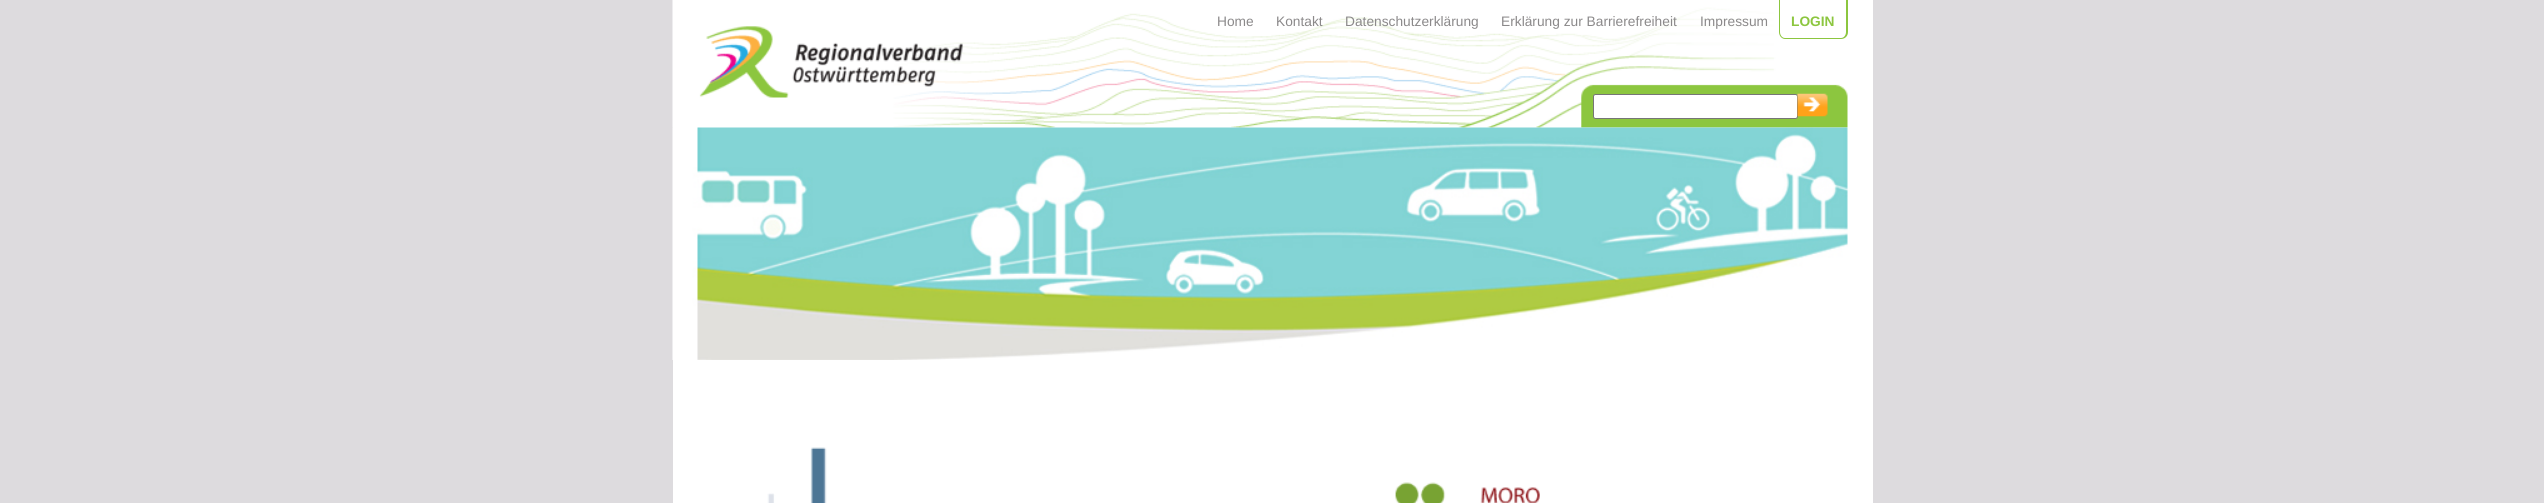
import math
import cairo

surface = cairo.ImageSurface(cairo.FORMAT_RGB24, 2544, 503)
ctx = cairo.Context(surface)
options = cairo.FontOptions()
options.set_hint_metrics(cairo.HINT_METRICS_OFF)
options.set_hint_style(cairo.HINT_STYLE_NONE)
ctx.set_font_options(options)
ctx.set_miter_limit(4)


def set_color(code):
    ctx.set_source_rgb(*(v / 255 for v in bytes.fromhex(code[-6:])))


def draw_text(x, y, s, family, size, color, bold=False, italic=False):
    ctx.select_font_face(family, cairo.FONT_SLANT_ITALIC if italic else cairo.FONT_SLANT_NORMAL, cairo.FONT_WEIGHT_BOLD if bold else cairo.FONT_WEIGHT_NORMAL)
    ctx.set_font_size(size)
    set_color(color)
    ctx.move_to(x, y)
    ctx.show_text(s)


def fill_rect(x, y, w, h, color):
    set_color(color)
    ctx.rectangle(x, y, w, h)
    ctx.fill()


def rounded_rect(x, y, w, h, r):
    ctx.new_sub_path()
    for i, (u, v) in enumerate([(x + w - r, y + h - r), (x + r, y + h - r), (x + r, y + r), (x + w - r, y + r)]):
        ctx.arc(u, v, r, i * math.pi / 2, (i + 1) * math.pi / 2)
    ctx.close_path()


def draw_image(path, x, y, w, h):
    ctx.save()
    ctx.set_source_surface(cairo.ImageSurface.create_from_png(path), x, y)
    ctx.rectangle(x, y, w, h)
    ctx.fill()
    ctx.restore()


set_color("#dddbde")
ctx.paint()
fill_rect(673, 0, 1200, 503, "#ffffff")
draw_image("assets/img1.png", 672, 0, 1176, 128)
draw_text(1217, 26, "Home", "Liberation Sans", 13.75, "#8b898a")
draw_text(1276, 26, "Kontakt", "Liberation Sans", 13.75, "#8b898a")
draw_text(1345, 26, "Datenschutzerklärung", "Liberation Sans", 13.75, "#8b898a")
draw_text(1501, 26, "Erklärung zur Barrierefreiheit", "Liberation Sans", 13.75, "#8b898a")
draw_text(1700, 26, "Impressum", "Liberation Sans", 13.75, "#8b898a")
set_color("#8cc63f")
ctx.set_fill_rule(cairo.FILL_RULE_EVEN_ODD)
ctx.new_path()
ctx.move_to(1779, 0)
ctx.line_to(1848, 0)
ctx.line_to(1848, 32)
ctx.curve_to(1848, 36, 1845, 39, 1841, 39)
ctx.line_to(1785, 39)
ctx.curve_to(1782, 39, 1779, 36, 1779, 32)
ctx.close_path()
ctx.move_to(1780, 0)
ctx.line_to(1846, 0)
ctx.line_to(1846, 32)
ctx.curve_to(1846, 35, 1844, 38, 1841, 38)
ctx.line_to(1785, 38)
ctx.curve_to(1782, 38, 1780, 35, 1780, 32)
ctx.close_path()
ctx.fill()
draw_text(1791, 26, "LOGIN", "Liberation Sans", 13.75, "#8cc63f", bold=True)
set_color("#ffffff")
rounded_rect(1593.5, 94.5, 204, 24, 2)
ctx.fill_preserve()
set_color("#767676")
ctx.set_line_width(1)
ctx.stroke()
draw_image("assets/img2.png", 1797, 93, 31, 24)
draw_image("assets/img3.png", 672, 127, 1176, 233)
draw_image("assets/img4.png", 767, 447, 60, 56)
draw_image("assets/img5.png", 1395, 482, 145, 21)
surface.write_to_png("output.png")
